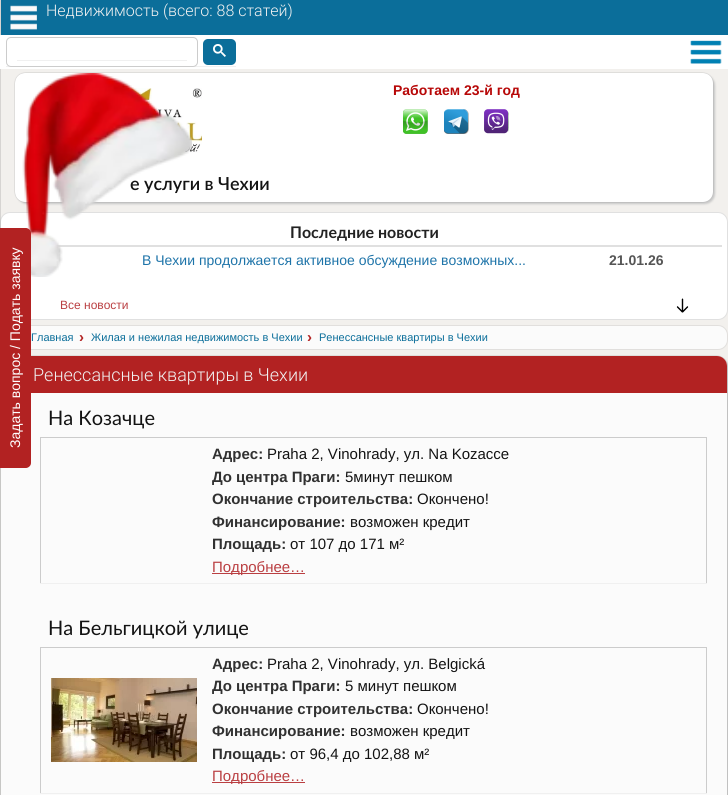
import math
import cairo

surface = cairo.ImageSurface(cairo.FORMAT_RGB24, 728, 795)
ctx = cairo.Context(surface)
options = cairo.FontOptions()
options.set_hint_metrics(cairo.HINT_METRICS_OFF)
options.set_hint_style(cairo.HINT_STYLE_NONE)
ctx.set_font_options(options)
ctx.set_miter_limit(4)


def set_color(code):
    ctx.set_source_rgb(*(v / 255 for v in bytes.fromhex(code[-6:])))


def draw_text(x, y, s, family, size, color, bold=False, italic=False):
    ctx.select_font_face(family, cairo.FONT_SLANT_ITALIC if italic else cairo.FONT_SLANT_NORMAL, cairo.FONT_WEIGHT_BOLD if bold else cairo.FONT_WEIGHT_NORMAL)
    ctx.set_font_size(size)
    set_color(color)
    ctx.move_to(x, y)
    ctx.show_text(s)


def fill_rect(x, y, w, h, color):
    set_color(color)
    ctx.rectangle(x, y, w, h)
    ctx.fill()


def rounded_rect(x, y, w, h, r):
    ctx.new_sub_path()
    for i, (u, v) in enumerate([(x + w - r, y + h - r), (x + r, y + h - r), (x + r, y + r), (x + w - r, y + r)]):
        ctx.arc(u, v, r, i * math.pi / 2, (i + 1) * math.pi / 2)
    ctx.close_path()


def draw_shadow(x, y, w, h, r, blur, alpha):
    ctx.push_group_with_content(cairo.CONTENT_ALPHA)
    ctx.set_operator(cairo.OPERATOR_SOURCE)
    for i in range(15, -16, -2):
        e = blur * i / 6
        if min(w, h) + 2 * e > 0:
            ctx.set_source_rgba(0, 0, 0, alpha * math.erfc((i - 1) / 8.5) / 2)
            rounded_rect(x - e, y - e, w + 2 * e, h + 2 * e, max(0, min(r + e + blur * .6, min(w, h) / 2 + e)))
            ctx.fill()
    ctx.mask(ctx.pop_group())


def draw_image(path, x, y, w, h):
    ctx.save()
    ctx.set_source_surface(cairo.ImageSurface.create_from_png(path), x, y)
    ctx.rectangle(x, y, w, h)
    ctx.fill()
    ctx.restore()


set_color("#f2f0ed")
ctx.paint()
set_color("#c7c7c7")
draw_shadow(3, 358, 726, 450, 10, 1, 1)
set_color("#a7a7a7")
draw_shadow(1, 356, 726, 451, 10, 0.5, 1)
set_color("#ffffff")
rounded_rect(0.5, 212.5, 727, 107, 9.5)
ctx.fill_preserve()
set_color("#e0e0e0")
ctx.set_line_width(1)
ctx.stroke()
set_color("#fbfbfb")
rounded_rect(0.5, 325.5, 727, 24, 9.5)
ctx.fill_preserve()
set_color("#e1dfdd")
ctx.stroke()
ctx.set_source_rgba(0.467, 0.467, 0.467, 0.23)
ctx.rectangle(0, 0, 1, 795)
ctx.fill()
fill_rect(1, 0, 727, 35, "#0b6e9a")
draw_image("assets/img1.png", 10, 5, 27, 25)
draw_text(46, 16, "Недвижимость (всего: 88 статей)", "Roboto Light", 16, "#f1f1f1")
set_color("#fbfbfb")
rounded_rect(1, 356, 726, 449, 10)
ctx.fill()
set_color("#b22222")
ctx.new_path()
ctx.move_to(11, 356)
ctx.line_to(717, 356)
ctx.curve_to(722.5, 356, 727, 360.5, 727, 366)
ctx.line_to(727, 393)
ctx.line_to(1, 393)
ctx.line_to(1, 366)
ctx.curve_to(1, 360.5, 5.5, 356, 11, 356)
ctx.close_path()
ctx.fill()
draw_text(33, 381, "Ренессансные квартиры в Чехии", "Roboto Light", 18, "#f1f1f1")
draw_text(48, 425, "На Козачце", "Lato", 20, "#131313")
fill_rect(40, 437, 667, 1, "#cccccc")
fill_rect(706, 437, 1, 147, "#cccccc")
fill_rect(40, 437, 1, 147, "#cccccc")
fill_rect(40, 583, 667, 1, "#f0f0f0")
draw_text(212, 459, "Адрес:", "Liberation Sans", 15, "#313131", bold=True)
draw_text(267, 459, "Praha 2, Vinohrady, ул. Na Kozaсce", "Liberation Sans", 15, "#131313")
draw_text(212, 482, "До центра Праги:", "Liberation Sans", 15, "#313131", bold=True)
draw_text(345, 482, "5минут пешком", "Liberation Sans", 15, "#131313")
draw_text(212, 504, "Окончание строительства:", "Liberation Sans", 15, "#313131", bold=True)
draw_text(417, 504, "Окончено!", "Liberation Sans", 15, "#131313")
draw_text(212, 527, "Финансирование:", "Liberation Sans", 15, "#313131", bold=True)
draw_text(350, 527, "возможен кредит", "Liberation Sans", 15, "#131313")
draw_text(212, 549, "Площадь:", "Liberation Sans", 15, "#313131", bold=True)
draw_text(290, 549, "от 107 до 171 м²", "Liberation Sans", 15, "#131313")
fill_rect(212, 573, 93, 1, "#ba3f42")
draw_text(212, 572, "Подробнее…", "Liberation Sans", 15, "#ba3f42")
draw_text(48, 635, "На Бельгицкой улице", "Lato", 20, "#131313")
fill_rect(40, 647, 667, 1, "#cccccc")
fill_rect(706, 647, 1, 147, "#cccccc")
fill_rect(40, 647, 1, 147, "#cccccc")
fill_rect(40, 793, 667, 1, "#f0f0f0")
draw_image("assets/img2.png", 51, 678, 146, 84)
draw_text(212, 669, "Адрес:", "Liberation Sans", 15, "#313131", bold=True)
draw_text(267, 669, "Praha 2, Vinohrady, ул. Belgická", "Liberation Sans", 15, "#131313")
draw_text(212, 691, "До центра Праги:", "Liberation Sans", 15, "#313131", bold=True)
draw_text(345, 691, "5 минут пешком", "Liberation Sans", 15, "#131313")
draw_text(212, 714, "Окончание строительства:", "Liberation Sans", 15, "#313131", bold=True)
draw_text(417, 714, "Окончено!", "Liberation Sans", 15, "#131313")
draw_text(212, 736, "Финансирование:", "Liberation Sans", 15, "#313131", bold=True)
draw_text(350, 736, "возможен кредит", "Liberation Sans", 15, "#131313")
draw_text(212, 759, "Площадь:", "Liberation Sans", 15, "#313131", bold=True)
draw_text(290, 759, "от 96,4 до 102,88 м²", "Liberation Sans", 15, "#131313")
fill_rect(212, 782, 93, 1, "#ba3f42")
draw_text(212, 781, "Подробнее…", "Liberation Sans", 15, "#ba3f42")
fill_rect(0, 35, 728, 34, "#ffffff")
fill_rect(6, 66, 230, 1, "#f0f0f0")
set_color("#ffffff")
rounded_rect(6.5, 37.5, 191, 29, 4.5)
ctx.fill_preserve()
set_color("#cccccc")
ctx.stroke()
fill_rect(17, 60, 170, 1, "#f0f0f0")
set_color("#0b6e9a")
rounded_rect(203, 39, 33, 26, 5)
ctx.fill()
draw_image("assets/img3.png", 213, 44, 13, 13)
draw_image("assets/img4.png", 690, 40, 32, 24)
set_color("#c7c7c7")
draw_shadow(17, 75, 698, 129, 10, 1, 1)
set_color("#a7a7a7")
draw_shadow(15, 73, 698, 129, 10, 0.5, 1)
set_color("#ffffff")
rounded_rect(15, 73, 698, 129, 10)
ctx.fill()
draw_image("assets/img6.png", 127, 88, 75, 67)
draw_text(130, 190, "е услуги в Чехии", "Lato SemiBold", 18, "#131313")
fill_rect(56, 245, 666, 2, "#e0e0e0")
draw_image("assets/img5.png", 22, 73, 170, 204)
draw_text(393, 95, "Работаем 23-й год", "Liberation Sans", 14, "#b70707", bold=True)
draw_image("assets/img7.png", 403, 109, 25, 25)
draw_image("assets/img8.png", 444, 109, 25, 25)
draw_image("assets/img9.png", 484, 109, 25, 25)
draw_text(142, 265, "В Чехии продолжается активное обсуждение возможных...", "Liberation Sans", 14, "#1e74a9")
gradient = cairo.LinearGradient(364, 267, 364, 297)
gradient.add_color_stop_rgba(0, 1, 1, 1, 0)
gradient.add_color_stop_rgba(1, 1, 1, 1, 1)
ctx.set_source(gradient)
ctx.new_path()
ctx.move_to(6, 267)
ctx.line_to(722, 267)
ctx.line_to(722, 289)
ctx.curve_to(722, 293.5, 718.5, 297, 714, 297)
ctx.line_to(14, 297)
ctx.curve_to(9.5, 297, 6, 293.5, 6, 289)
ctx.close_path()
ctx.fill()
set_color("#b22222")
ctx.new_path()
ctx.move_to(0, 468)
ctx.line_to(0, 228)
ctx.line_to(26, 228)
ctx.curve_to(28, 228, 31, 230, 31, 233)
ctx.line_to(31, 463)
ctx.curve_to(31, 466, 28, 468, 26, 468)
ctx.close_path()
ctx.fill()
ctx.save()
ctx.translate(20, 448)
ctx.rotate(-90 * math.pi / 180)
draw_text(0, 0, "Задать вопрос / Подать заявку", "Liberation Sans", 14, "#ffffff")
ctx.restore()
draw_text(290, 238, "Последние новости", "Lato", 16, "#222222", bold=True)
draw_text(609, 265, "21.01.26", "Liberation Sans", 14, "#555555", bold=True)
draw_text(60, 309, "Все новости", "Liberation Sans", 12, "#ba3f42")
draw_image("assets/img10.png", 676, 298, 13, 15)
draw_text(31, 341, "Главная", "Liberation Sans", 11, "#0b6e9a")
draw_text(79, 342, "›", "Liberation Sans", 15, "#b22222", bold=True)
draw_text(91, 341, "Жилая и нежилая недвижимость в Чехии", "Liberation Sans", 11, "#0b6e9a")
draw_text(307, 342, "›", "Liberation Sans", 15, "#b22222", bold=True)
draw_text(319, 341, "Ренессансные квартиры в Чехии", "Liberation Sans", 11, "#0b6e9a")
surface.write_to_png("output.png")
